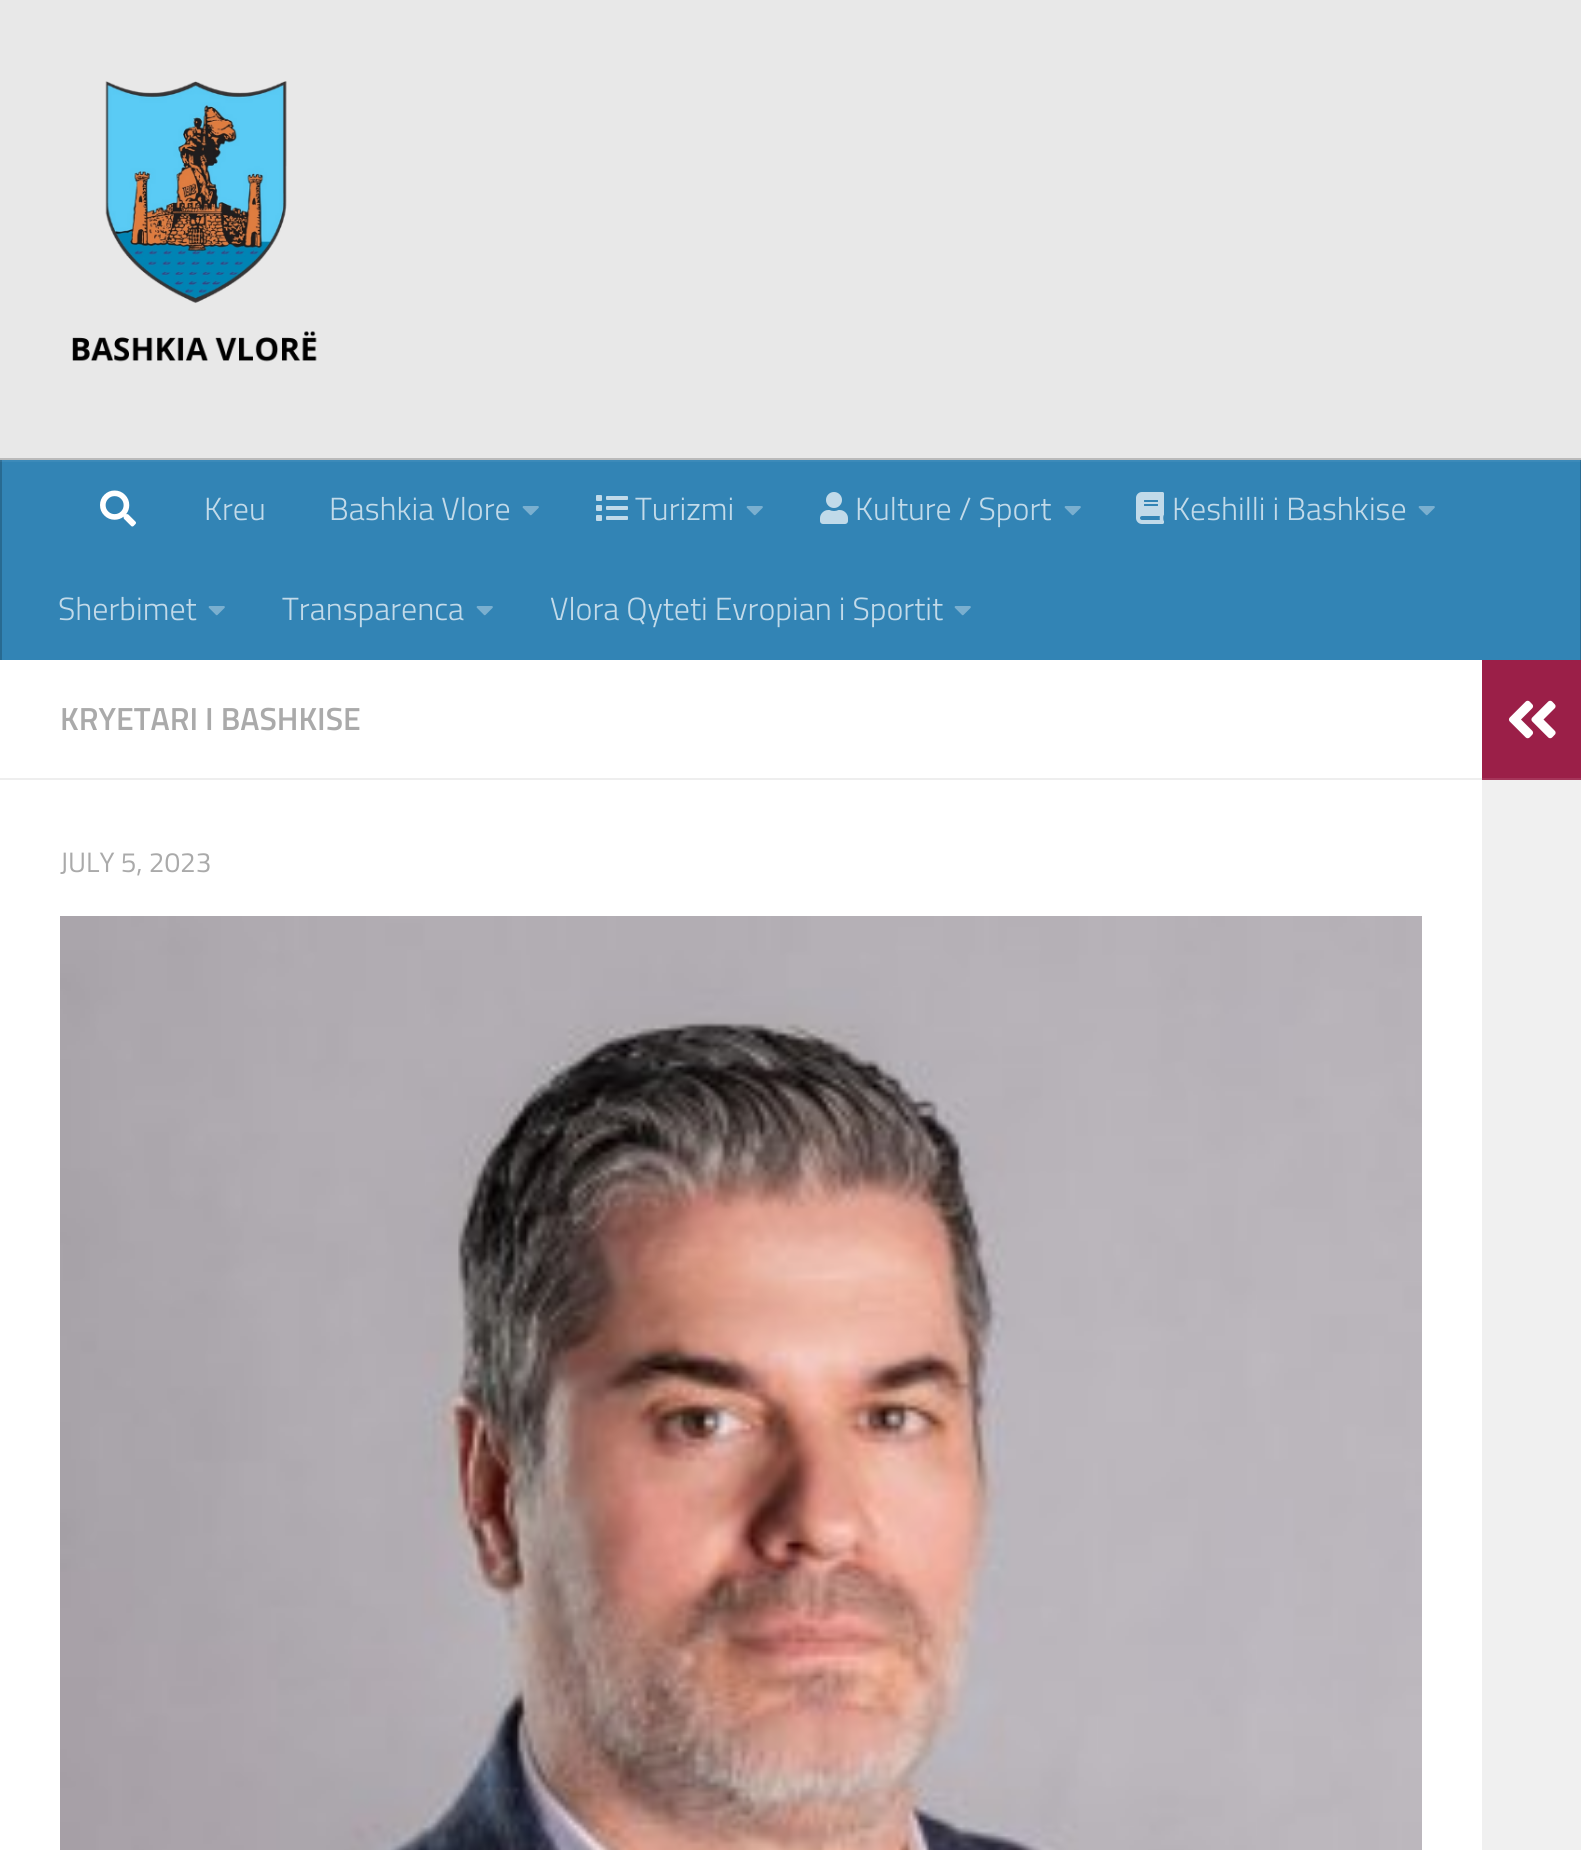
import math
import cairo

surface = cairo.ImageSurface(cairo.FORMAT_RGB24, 1581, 1850)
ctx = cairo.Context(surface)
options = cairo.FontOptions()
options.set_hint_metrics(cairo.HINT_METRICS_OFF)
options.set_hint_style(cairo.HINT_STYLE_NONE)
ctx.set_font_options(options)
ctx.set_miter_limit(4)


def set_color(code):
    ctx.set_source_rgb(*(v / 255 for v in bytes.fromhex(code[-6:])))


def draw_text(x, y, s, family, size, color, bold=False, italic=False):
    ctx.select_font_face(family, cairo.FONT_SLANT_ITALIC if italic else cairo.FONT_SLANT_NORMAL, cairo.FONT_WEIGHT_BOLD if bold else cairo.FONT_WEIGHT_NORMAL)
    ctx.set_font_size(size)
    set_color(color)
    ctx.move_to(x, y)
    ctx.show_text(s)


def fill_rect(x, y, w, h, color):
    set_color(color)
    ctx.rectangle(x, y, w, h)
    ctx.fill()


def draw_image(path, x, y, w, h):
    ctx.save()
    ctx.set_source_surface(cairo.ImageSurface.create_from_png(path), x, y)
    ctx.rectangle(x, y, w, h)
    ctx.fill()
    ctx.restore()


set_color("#e8e8e8")
ctx.paint()
draw_image("assets/img1.png", 72, 81, 245, 281)
fill_rect(0, 458, 1581, 2, "#bababa")
fill_rect(2, 462, 1578, 198, "#3284b5")
fill_rect(0, 460, 1581, 2, "#3c8ab9")
fill_rect(1580, 460, 1, 200, "#286a91")
fill_rect(1580, 460, 1, 2, "#337197")
fill_rect(0, 460, 2, 200, "#286a91")
fill_rect(0, 460, 2, 2, "#337197")
draw_image("assets/img2.png", 100, 490, 36, 37)
draw_text(204, 520, "Kreu", "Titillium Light", 32, "#c2dae9")
draw_text(329, 520, "Bashkia Vlore", "Titillium Light", 32, "#c2dae9")
draw_image("assets/img3.png", 522, 506, 17, 10)
draw_image("assets/img4.png", 596, 495, 32, 26)
draw_text(635, 520, "Turizmi", "Titillium Light", 32, "#c2dae9")
draw_image("assets/img3.png", 746, 506, 17, 10)
draw_image("assets/img5.png", 820, 492, 28, 32)
draw_text(855, 520, "Kulture / Sport", "Titillium Light", 32, "#c2dae9")
draw_image("assets/img3.png", 1064, 506, 17, 10)
draw_image("assets/img6.png", 1136, 492, 28, 32)
draw_text(1172, 520, "Keshilli i Bashkise", "Titillium Light", 32, "#c2dae9")
draw_image("assets/img3.png", 1418, 506, 17, 10)
draw_text(58, 620, "Sherbimet", "Titillium Light", 32, "#c2dae9")
draw_image("assets/img3.png", 208, 606, 17, 10)
draw_text(282, 620, "Transparenca", "Titillium Light", 32, "#c2dae9")
draw_image("assets/img3.png", 476, 606, 17, 10)
draw_text(550, 620, "Vlora Qyteti Evropian i Sportit", "Titillium Light", 32, "#c2dae9")
draw_image("assets/img3.png", 954, 606, 17, 10)
fill_rect(0, 660, 1482, 1190, "#ffffff")
fill_rect(0, 778, 1482, 2, "#eeeeee")
draw_text(60, 730, "KRYETARI I BASHKISE", "Titillium SemiBold", 32, "#aaaaaa")
draw_text(60, 872, "JULY 5, 2023", "Titillium", 28, "#aaaaaa")
draw_image("assets/img7.png", 60, 916, 1362, 934)
fill_rect(1482, 660, 99, 118, "#9b1f48")
fill_rect(1482, 778, 99, 2, "#a5355a")
draw_image("assets/img8.png", 1508, 700, 48, 39)
fill_rect(1482, 780, 99, 1070, "#f0f0f0")
surface.write_to_png("output.png")
